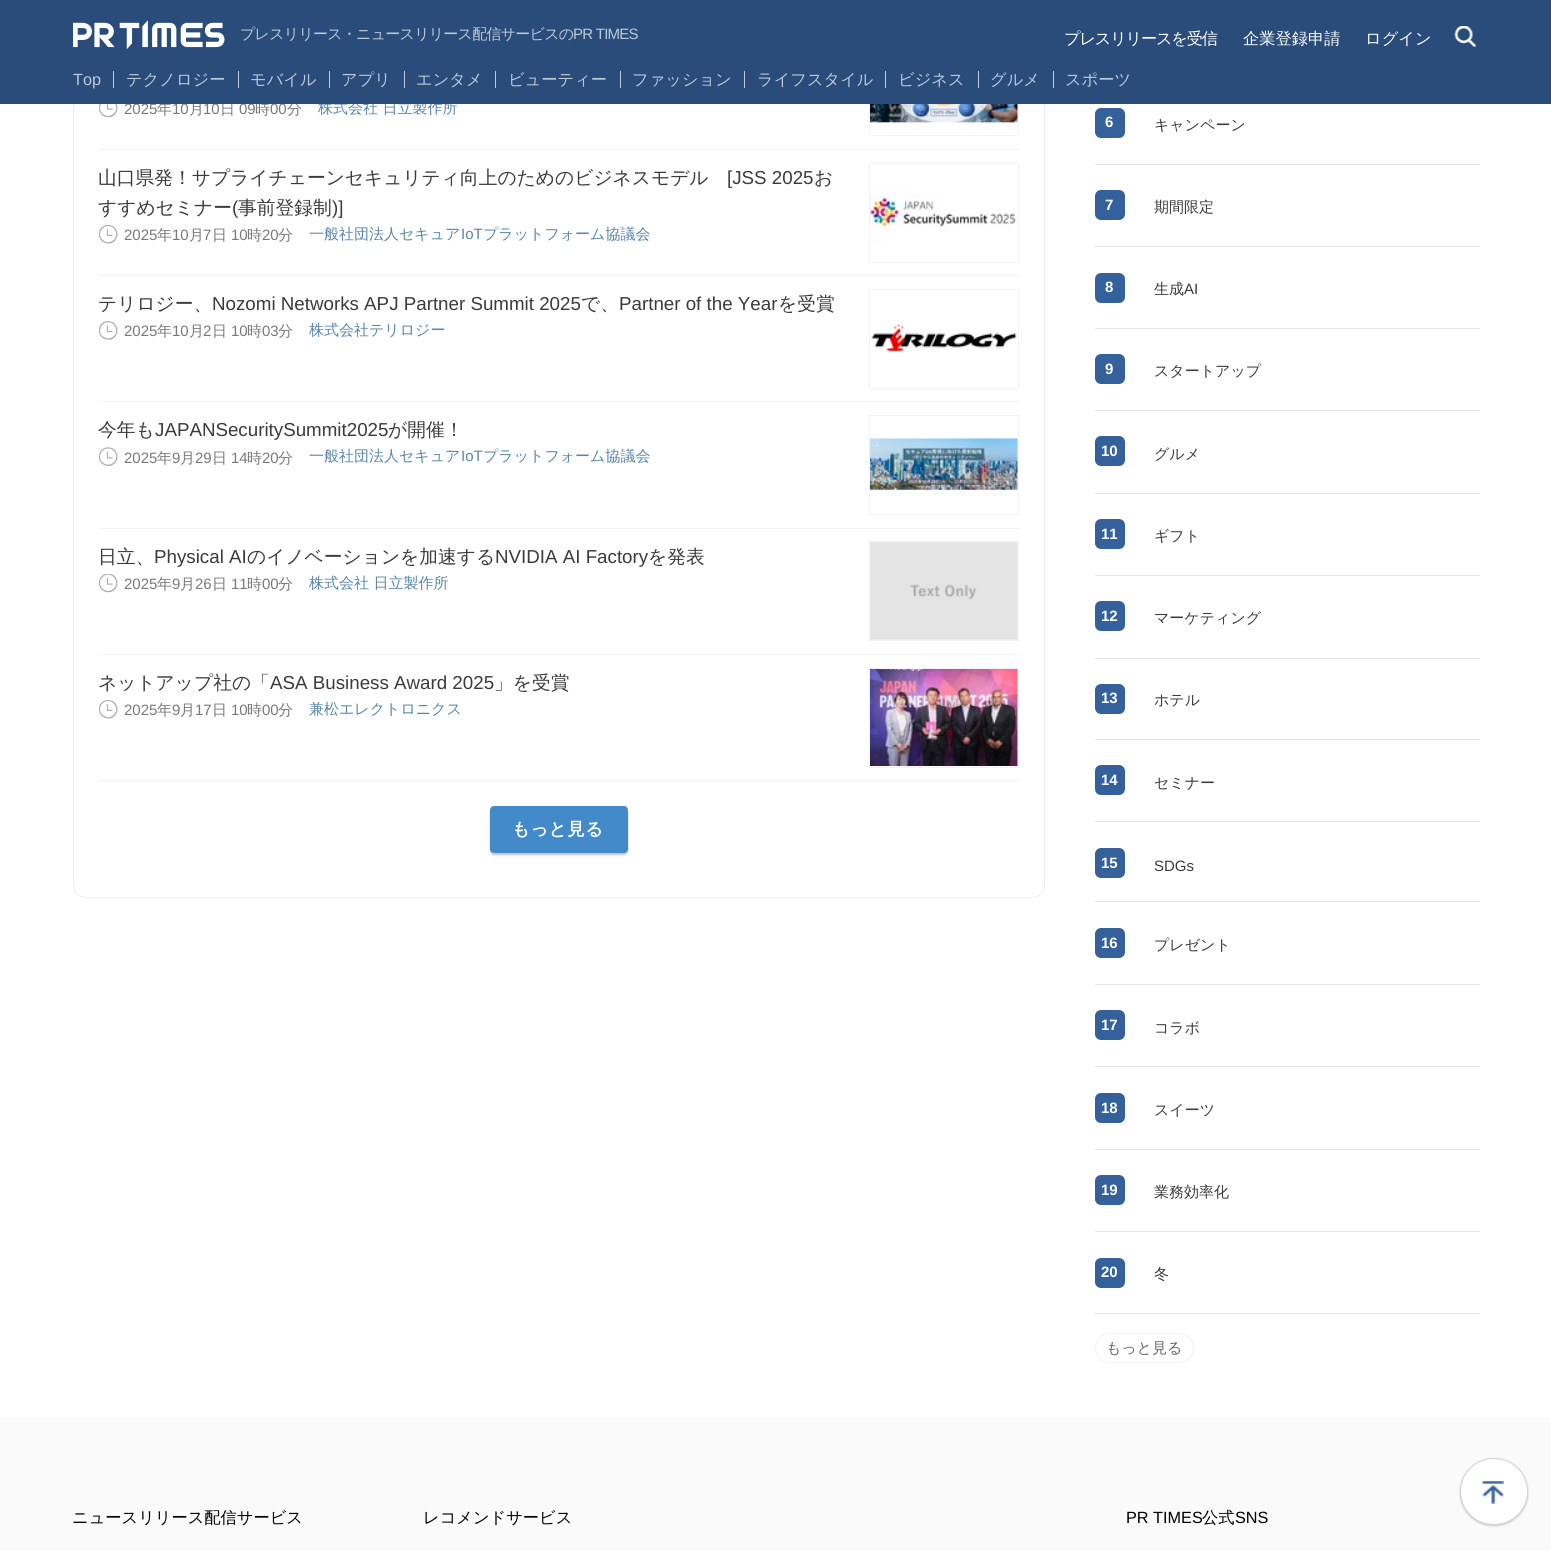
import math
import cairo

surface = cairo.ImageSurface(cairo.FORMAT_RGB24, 1551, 1551)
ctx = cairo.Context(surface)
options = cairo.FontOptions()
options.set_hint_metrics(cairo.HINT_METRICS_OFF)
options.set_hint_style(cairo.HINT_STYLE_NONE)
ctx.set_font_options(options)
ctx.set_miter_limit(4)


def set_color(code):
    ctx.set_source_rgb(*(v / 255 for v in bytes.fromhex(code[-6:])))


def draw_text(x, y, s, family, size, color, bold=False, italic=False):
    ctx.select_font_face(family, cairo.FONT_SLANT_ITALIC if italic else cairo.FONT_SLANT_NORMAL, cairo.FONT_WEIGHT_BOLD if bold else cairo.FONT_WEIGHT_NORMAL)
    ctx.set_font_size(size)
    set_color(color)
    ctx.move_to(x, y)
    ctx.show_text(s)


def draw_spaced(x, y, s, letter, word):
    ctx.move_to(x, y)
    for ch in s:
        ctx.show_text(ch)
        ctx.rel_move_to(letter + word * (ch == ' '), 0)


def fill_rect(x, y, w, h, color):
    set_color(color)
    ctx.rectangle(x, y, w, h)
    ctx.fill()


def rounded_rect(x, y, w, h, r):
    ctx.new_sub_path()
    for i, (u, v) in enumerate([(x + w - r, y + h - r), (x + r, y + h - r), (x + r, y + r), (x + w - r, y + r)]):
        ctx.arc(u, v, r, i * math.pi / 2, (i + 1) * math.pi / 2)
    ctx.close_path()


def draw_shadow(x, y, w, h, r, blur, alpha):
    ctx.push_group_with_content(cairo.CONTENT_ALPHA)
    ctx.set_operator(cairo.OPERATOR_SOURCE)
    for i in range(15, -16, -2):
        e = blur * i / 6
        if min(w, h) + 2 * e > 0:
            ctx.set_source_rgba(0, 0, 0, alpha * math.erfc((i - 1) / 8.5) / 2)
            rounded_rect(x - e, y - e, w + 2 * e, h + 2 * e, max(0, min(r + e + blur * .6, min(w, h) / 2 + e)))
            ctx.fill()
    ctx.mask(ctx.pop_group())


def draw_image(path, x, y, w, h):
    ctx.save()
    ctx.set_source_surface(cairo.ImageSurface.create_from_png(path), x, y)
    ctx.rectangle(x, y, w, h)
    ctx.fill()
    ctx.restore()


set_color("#ffffff")
ctx.paint()
ctx.new_path()
ctx.move_to(73.5, -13.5)
ctx.line_to(1044.5, -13.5)
ctx.line_to(1044.5, 885)
ctx.curve_to(1044.5, 892, 1039, 897.5, 1032, 897.5)
ctx.line_to(86, 897.5)
ctx.curve_to(79, 897.5, 73.5, 892, 73.5, 885)
ctx.close_path()
set_color("#ededed")
ctx.set_line_width(1)
ctx.stroke()
draw_text(124, 114, "2025", "Liberation Sans", 15, "#797979")
draw_text(157, 114, "年", "WenQuanYi Zen Hei Medium", 15, "#797979")
draw_text(172, 114, "10", "Liberation Sans", 15, "#797979")
draw_text(189, 114, "月", "WenQuanYi Zen Hei Medium", 15, "#797979")
draw_text(203, 114, "10", "Liberation Sans", 15, "#797979")
draw_text(220, 114, "日", "WenQuanYi Zen Hei Medium", 15, "#797979")
draw_text(239, 114, "09", "Liberation Sans", 15, "#797979")
draw_text(255, 114, "時", "WenQuanYi Zen Hei Medium", 15, "#797979")
draw_text(270, 114, "00", "Liberation Sans", 15, "#797979")
draw_text(287, 114, "分", "WenQuanYi Zen Hei Medium", 15, "#797979")
draw_text(318, 113, "株式会社 日立製作所", "WenQuanYi Zen Hei Medium", 15, "#5686ab")
draw_image("assets/img4.png", 870, 104, 148, 19)
ctx.rectangle(869.5, 36.5, 149, 99)
set_color("#f2f2f2")
ctx.stroke()
fill_rect(0, 0, 1551, 104, "#294c7a")
draw_image("assets/img1.png", 73, 20, 152, 30)
set_color("#bfc9d7")
draw_spaced(240, 39, "プレスリリース・ニュースリリース配信サービスの", -0.75, 0)
ctx.select_font_face("Liberation Sans")
draw_spaced(573, 39, "PR TIMES", -0.75, 0)
ctx.select_font_face("WenQuanYi Zen Hei Medium")
ctx.set_font_size(16.25)
set_color("#ffffff")
draw_spaced(1064, 44, "プレスリリースを受信", -1.25, 0)
draw_text(1243, 44, "企業登録申請", "WenQuanYi Zen Hei Medium", 16.25, "#ffffff")
draw_text(1365, 44, "ログイン", "WenQuanYi Zen Hei Medium", 16.25, "#ffffff")
draw_image("assets/img2.png", 1454, 26, 23, 21)
draw_text(73, 85, "Top", "Liberation Sans", 16.25, "#bfc9d7")
fill_rect(113, 71, 1, 17, "#bfc9d7")
draw_text(126, 85, "テクノロジー", "WenQuanYi Zen Hei Medium", 16.25, "#bfc9d7")
fill_rect(238, 71, 1, 17, "#bfc9d7")
draw_text(250, 85, "モバイル", "WenQuanYi Zen Hei Medium", 16.25, "#bfc9d7")
fill_rect(329, 71, 1, 17, "#bfc9d7")
draw_text(341, 85, "アプリ", "WenQuanYi Zen Hei Medium", 16.25, "#bfc9d7")
fill_rect(404, 71, 1, 17, "#bfc9d7")
draw_text(416, 85, "エンタメ", "WenQuanYi Zen Hei Medium", 16.25, "#bfc9d7")
fill_rect(495, 71, 1, 17, "#bfc9d7")
draw_text(508, 85, "ビューティー", "WenQuanYi Zen Hei Medium", 16.25, "#bfc9d7")
fill_rect(620, 71, 1, 17, "#bfc9d7")
draw_text(632, 85, "ファッション", "WenQuanYi Zen Hei Medium", 16.25, "#bfc9d7")
fill_rect(744, 71, 1, 17, "#bfc9d7")
draw_text(757, 85, "ライフスタイル", "WenQuanYi Zen Hei Medium", 16.25, "#bfc9d7")
fill_rect(885, 71, 1, 17, "#bfc9d7")
draw_text(898, 85, "ビジネス", "WenQuanYi Zen Hei Medium", 16.25, "#bfc9d7")
fill_rect(978, 71, 1, 17, "#bfc9d7")
draw_text(990, 85, "グルメ", "WenQuanYi Zen Hei Medium", 16.25, "#bfc9d7")
fill_rect(1053, 71, 1, 17, "#bfc9d7")
draw_text(1065, 85, "スポーツ", "WenQuanYi Zen Hei Medium", 16.25, "#bfc9d7")
draw_image("assets/img3.png", 99, 104, 19, 14)
fill_rect(99, 149, 920, 1, "#f2f2f2")
draw_text(98, 184, "山口県発！サプライチェーンセキュリティ向上のためのビジネスモデル", "WenQuanYi Zen Hei Medium", 18.75, "#3b3b3b")
draw_text(727, 184, "[JSS 2025", "Liberation Sans", 18.75, "#3b3b3b")
draw_text(814, 184, "お", "WenQuanYi Zen Hei Medium", 18.75, "#3b3b3b")
draw_text(98, 214, "すすめセミナー", "WenQuanYi Zen Hei Medium", 18.75, "#3b3b3b")
draw_text(232, 214, "(", "Liberation Sans", 18.75, "#3b3b3b")
draw_text(238, 214, "事前登録制", "WenQuanYi Zen Hei Medium", 18.75, "#3b3b3b")
draw_text(332, 214, ")]", "Liberation Sans", 18.75, "#3b3b3b")
draw_image("assets/img5.png", 870, 184, 148, 60)
ctx.rectangle(869.5, 163.5, 149, 99)
set_color("#f2f2f2")
ctx.stroke()
draw_image("assets/img6.png", 99, 225, 19, 19)
draw_text(124, 240, "2025", "Liberation Sans", 15, "#797979")
draw_text(157, 240, "年", "WenQuanYi Zen Hei Medium", 15, "#797979")
draw_text(172, 240, "10", "Liberation Sans", 15, "#797979")
draw_text(189, 240, "月", "WenQuanYi Zen Hei Medium", 15, "#797979")
draw_text(203, 240, "7", "Liberation Sans", 15, "#797979")
draw_text(212, 240, "日", "WenQuanYi Zen Hei Medium", 15, "#797979")
draw_text(231, 240, "10", "Liberation Sans", 15, "#797979")
draw_text(247, 240, "時", "WenQuanYi Zen Hei Medium", 15, "#797979")
draw_text(262, 240, "20", "Liberation Sans", 15, "#797979")
draw_text(278, 240, "分", "WenQuanYi Zen Hei Medium", 15, "#797979")
draw_text(309, 239, "一般社団法人セキュア", "WenQuanYi Zen Hei Medium", 15, "#5686ab")
draw_text(461, 239, "IoT", "Liberation Sans", 15, "#5686ab")
draw_text(483, 239, "プラットフォーム協議会", "WenQuanYi Zen Hei Medium", 15, "#5686ab")
fill_rect(99, 275, 920, 1, "#f2f2f2")
draw_text(98, 310, "テリロジー、", "WenQuanYi Zen Hei Medium", 18.75, "#3b3b3b")
draw_text(212, 310, "Nozomi Networks APJ Partner Summit 2025", "Liberation Sans", 18.75, "#3b3b3b")
draw_text(581, 310, "で、", "WenQuanYi Zen Hei Medium", 18.75, "#3b3b3b")
draw_text(619, 310, "Partner of the Year", "Liberation Sans", 18.75, "#3b3b3b")
draw_text(778, 310, "を受賞", "WenQuanYi Zen Hei Medium", 18.75, "#3b3b3b")
draw_image("assets/img7.png", 871, 324, 146, 28)
ctx.rectangle(869.5, 289.5, 149, 99)
set_color("#f2f2f2")
ctx.stroke()
draw_image("assets/img8.png", 99, 321, 19, 19)
draw_text(124, 336, "2025", "Liberation Sans", 15, "#797979")
draw_text(157, 336, "年", "WenQuanYi Zen Hei Medium", 15, "#797979")
draw_text(172, 336, "10", "Liberation Sans", 15, "#797979")
draw_text(189, 336, "月", "WenQuanYi Zen Hei Medium", 15, "#797979")
draw_text(203, 336, "2", "Liberation Sans", 15, "#797979")
draw_text(212, 336, "日", "WenQuanYi Zen Hei Medium", 15, "#797979")
draw_text(231, 336, "10", "Liberation Sans", 15, "#797979")
draw_text(247, 336, "時", "WenQuanYi Zen Hei Medium", 15, "#797979")
draw_text(262, 336, "03", "Liberation Sans", 15, "#797979")
draw_text(278, 336, "分", "WenQuanYi Zen Hei Medium", 15, "#797979")
draw_text(309, 335, "株式会社テリロジー", "WenQuanYi Zen Hei Medium", 15, "#5686ab")
fill_rect(99, 401, 920, 1, "#f2f2f2")
draw_text(98, 436, "今年も", "WenQuanYi Zen Hei Medium", 18.75, "#3b3b3b")
draw_text(155, 436, "JAPANSecuritySummit2025", "Liberation Sans", 18.75, "#3b3b3b")
draw_text(388, 436, "が開催！", "WenQuanYi Zen Hei Medium", 18.75, "#3b3b3b")
draw_image("assets/img9.png", 870, 437, 148, 60)
ctx.rectangle(869.5, 415.5, 149, 99)
set_color("#f2f2f2")
ctx.stroke()
draw_image("assets/img10.png", 99, 447, 19, 19)
draw_text(124, 463, "2025", "Liberation Sans", 15, "#797979")
draw_text(157, 463, "年", "WenQuanYi Zen Hei Medium", 15, "#797979")
draw_text(172, 463, "9", "Liberation Sans", 15, "#797979")
draw_text(180, 463, "月", "WenQuanYi Zen Hei Medium", 15, "#797979")
draw_text(195, 463, "29", "Liberation Sans", 15, "#797979")
draw_text(212, 463, "日", "WenQuanYi Zen Hei Medium", 15, "#797979")
draw_text(231, 463, "14", "Liberation Sans", 15, "#797979")
draw_text(247, 463, "時", "WenQuanYi Zen Hei Medium", 15, "#797979")
draw_text(262, 463, "20", "Liberation Sans", 15, "#797979")
draw_text(278, 463, "分", "WenQuanYi Zen Hei Medium", 15, "#797979")
draw_text(309, 461, "一般社団法人セキュア", "WenQuanYi Zen Hei Medium", 15, "#5686ab")
draw_text(461, 461, "IoT", "Liberation Sans", 15, "#5686ab")
draw_text(483, 461, "プラットフォーム協議会", "WenQuanYi Zen Hei Medium", 15, "#5686ab")
fill_rect(99, 528, 920, 1, "#f2f2f2")
draw_text(98, 563, "日立、", "WenQuanYi Zen Hei Medium", 18.75, "#3b3b3b")
draw_text(154, 563, "Physical AI", "Liberation Sans", 18.75, "#3b3b3b")
draw_text(247, 563, "のイノベーションを加速する", "WenQuanYi Zen Hei Medium", 18.75, "#3b3b3b")
draw_text(495, 563, "NVIDIA AI Factory", "Liberation Sans", 18.75, "#3b3b3b")
draw_text(648, 563, "を発表", "WenQuanYi Zen Hei Medium", 18.75, "#3b3b3b")
draw_image("assets/img11.png", 870, 542, 148, 98)
ctx.rectangle(869.5, 541.5, 149, 99)
set_color("#f2f2f2")
ctx.stroke()
draw_image("assets/img12.png", 99, 574, 19, 19)
draw_text(124, 589, "2025", "Liberation Sans", 15, "#797979")
draw_text(157, 589, "年", "WenQuanYi Zen Hei Medium", 15, "#797979")
draw_text(172, 589, "9", "Liberation Sans", 15, "#797979")
draw_text(180, 589, "月", "WenQuanYi Zen Hei Medium", 15, "#797979")
draw_text(195, 589, "26", "Liberation Sans", 15, "#797979")
draw_text(212, 589, "日", "WenQuanYi Zen Hei Medium", 15, "#797979")
draw_text(231, 589, "11", "Liberation Sans", 15, "#797979")
draw_text(247, 589, "時", "WenQuanYi Zen Hei Medium", 15, "#797979")
draw_text(262, 589, "00", "Liberation Sans", 15, "#797979")
draw_text(278, 589, "分", "WenQuanYi Zen Hei Medium", 15, "#797979")
draw_text(309, 588, "株式会社 日立製作所", "WenQuanYi Zen Hei Medium", 15, "#5686ab")
fill_rect(99, 654, 920, 1, "#f2f2f2")
fill_rect(99, 780, 920, 1, "#f2f2f2")
draw_text(98, 689, "ネットアップ社の「", "WenQuanYi Zen Hei Medium", 18.75, "#3b3b3b")
draw_text(270, 689, "ASA Business Award 2025", "Liberation Sans", 18.75, "#3b3b3b")
draw_text(494, 689, "」を受賞", "WenQuanYi Zen Hei Medium", 18.75, "#3b3b3b")
draw_image("assets/img13.png", 870, 669, 148, 97)
ctx.rectangle(869.5, 668.5, 149, 99)
set_color("#f2f2f2")
ctx.stroke()
draw_image("assets/img6.png", 99, 700, 19, 19)
draw_text(124, 715, "2025", "Liberation Sans", 15, "#797979")
draw_text(157, 715, "年", "WenQuanYi Zen Hei Medium", 15, "#797979")
draw_text(172, 715, "9", "Liberation Sans", 15, "#797979")
draw_text(180, 715, "月", "WenQuanYi Zen Hei Medium", 15, "#797979")
draw_text(195, 715, "17", "Liberation Sans", 15, "#797979")
draw_text(212, 715, "日", "WenQuanYi Zen Hei Medium", 15, "#797979")
draw_text(231, 715, "10", "Liberation Sans", 15, "#797979")
draw_text(247, 715, "時", "WenQuanYi Zen Hei Medium", 15, "#797979")
draw_text(262, 715, "00", "Liberation Sans", 15, "#797979")
draw_text(278, 715, "分", "WenQuanYi Zen Hei Medium", 15, "#797979")
draw_text(309, 714, "兼松エレクトロニクス", "WenQuanYi Zen Hei Medium", 15, "#5686ab")
set_color("#000000")
draw_shadow(490, 809, 138, 46, 4, 1, 0.24)
set_color("#428ac9")
rounded_rect(490, 806, 138, 47, 4)
ctx.fill()
ctx.select_font_face("WenQuanYi Zen Hei", cairo.FONT_SLANT_NORMAL, cairo.FONT_WEIGHT_BOLD)
ctx.set_font_size(17.5)
set_color("#ffffff")
draw_spaced(512, 835, "もっと見る", 0.5, 0)
fill_rect(1095, 164, 385, 1, "#e5e5e5")
set_color("#34619c")
rounded_rect(1095, 108, 30, 30, 6)
ctx.fill()
draw_text(1105, 127, "6", "Liberation Sans", 15, "#ffffff", bold=True)
draw_text(1154, 130, "キャンペーン", "WenQuanYi Zen Hei Medium", 15, "#3b3b3b")
fill_rect(1095, 246, 385, 1, "#e5e5e5")
set_color("#34619c")
rounded_rect(1095, 190, 30, 30, 6)
ctx.fill()
draw_text(1105, 210, "7", "Liberation Sans", 15, "#ffffff", bold=True)
draw_text(1154, 212, "期間限定", "WenQuanYi Zen Hei Medium", 15, "#3b3b3b")
fill_rect(1095, 328, 385, 1, "#e5e5e5")
set_color("#34619c")
rounded_rect(1095, 273, 30, 30, 6)
ctx.fill()
draw_text(1105, 292, "8", "Liberation Sans", 15, "#ffffff", bold=True)
draw_text(1154, 294, "生成", "WenQuanYi Zen Hei Medium", 15, "#3b3b3b")
draw_text(1184, 294, "AI", "Liberation Sans", 15, "#3b3b3b")
fill_rect(1095, 410, 385, 1, "#e5e5e5")
set_color("#34619c")
rounded_rect(1095, 354, 30, 30, 6)
ctx.fill()
draw_text(1105, 374, "9", "Liberation Sans", 15, "#ffffff", bold=True)
draw_text(1154, 376, "スタートアップ", "WenQuanYi Zen Hei Medium", 15, "#3b3b3b")
fill_rect(1095, 493, 385, 1, "#e5e5e5")
set_color("#34619c")
rounded_rect(1095, 436, 30, 30, 6)
ctx.fill()
draw_text(1101, 456, "10", "Liberation Sans", 15, "#ffffff", bold=True)
draw_text(1154, 459, "グルメ", "WenQuanYi Zen Hei Medium", 15, "#3b3b3b")
fill_rect(1095, 575, 385, 1, "#e5e5e5")
set_color("#34619c")
rounded_rect(1095, 519, 30, 30, 6)
ctx.fill()
draw_text(1101, 539, "11", "Liberation Sans", 15, "#ffffff", bold=True)
draw_text(1154, 541, "ギフト", "WenQuanYi Zen Hei Medium", 15, "#3b3b3b")
fill_rect(1095, 658, 385, 1, "#e5e5e5")
set_color("#34619c")
rounded_rect(1095, 601, 30, 30, 6)
ctx.fill()
draw_text(1101, 621, "12", "Liberation Sans", 15, "#ffffff", bold=True)
draw_text(1154, 623, "マーケティング", "WenQuanYi Zen Hei Medium", 15, "#3b3b3b")
fill_rect(1095, 739, 385, 1, "#e5e5e5")
set_color("#34619c")
rounded_rect(1095, 684, 30, 30, 6)
ctx.fill()
draw_text(1101, 703, "13", "Liberation Sans", 15, "#ffffff", bold=True)
draw_text(1154, 705, "ホテル", "WenQuanYi Zen Hei Medium", 15, "#3b3b3b")
fill_rect(1095, 821, 385, 1, "#e5e5e5")
set_color("#34619c")
rounded_rect(1095, 765, 30, 30, 6)
ctx.fill()
draw_text(1101, 785, "14", "Liberation Sans", 15, "#ffffff", bold=True)
draw_text(1154, 788, "セミナー", "WenQuanYi Zen Hei Medium", 15, "#3b3b3b")
fill_rect(1095, 901, 385, 1, "#e5e5e5")
set_color("#34619c")
rounded_rect(1095, 848, 30, 30, 6)
ctx.fill()
draw_text(1101, 868, "15", "Liberation Sans", 15, "#ffffff", bold=True)
draw_text(1154, 871, "SDGs", "Liberation Sans", 15, "#3b3b3b")
fill_rect(1095, 984, 385, 1, "#e5e5e5")
set_color("#34619c")
rounded_rect(1095, 928, 30, 30, 6)
ctx.fill()
draw_text(1101, 948, "16", "Liberation Sans", 15, "#ffffff", bold=True)
draw_text(1154, 950, "プレゼント", "WenQuanYi Zen Hei Medium", 15, "#3b3b3b")
fill_rect(1095, 1066, 385, 1, "#e5e5e5")
set_color("#34619c")
rounded_rect(1095, 1010, 30, 30, 6)
ctx.fill()
draw_text(1101, 1030, "17", "Liberation Sans", 15, "#ffffff", bold=True)
draw_text(1154, 1033, "コラボ", "WenQuanYi Zen Hei Medium", 15, "#3b3b3b")
fill_rect(1095, 1149, 385, 1, "#e5e5e5")
set_color("#34619c")
rounded_rect(1095, 1093, 30, 30, 6)
ctx.fill()
draw_text(1101, 1113, "18", "Liberation Sans", 15, "#ffffff", bold=True)
draw_text(1154, 1115, "スイーツ", "WenQuanYi Zen Hei Medium", 15, "#3b3b3b")
fill_rect(1095, 1231, 385, 1, "#e5e5e5")
set_color("#34619c")
rounded_rect(1095, 1175, 30, 30, 6)
ctx.fill()
draw_text(1101, 1195, "19", "Liberation Sans", 15, "#ffffff", bold=True)
draw_text(1154, 1197, "業務効率化", "WenQuanYi Zen Hei Medium", 15, "#3b3b3b")
fill_rect(1095, 1313, 385, 1, "#e5e5e5")
set_color("#34619c")
rounded_rect(1095, 1258, 30, 30, 6)
ctx.fill()
draw_text(1101, 1277, "20", "Liberation Sans", 15, "#ffffff", bold=True)
draw_text(1154, 1279, "冬", "WenQuanYi Zen Hei Medium", 15, "#3b3b3b")
rounded_rect(1095.5, 1333.5, 98, 29, 14.5)
set_color("#f1f1f1")
ctx.stroke()
draw_text(1106, 1353, "もっと見る", "WenQuanYi Zen Hei Medium", 15, "#666666")
fill_rect(0, 1418, 1551, 133, "#fafafa")
draw_text(72, 1523, "ニュースリリース配信サービス", "WenQuanYi Zen Hei Medium", 16.25, "#000000")
draw_text(423, 1523, "レコメンドサービス", "WenQuanYi Zen Hei Medium", 16.25, "#000000")
draw_text(1126, 1523, "PR TIMES", "Liberation Sans", 16.25, "#000000")
draw_text(1202, 1523, "公式", "WenQuanYi Zen Hei Medium", 16.25, "#000000")
draw_text(1235, 1523, "SNS", "Liberation Sans", 16.25, "#000000")
set_color("#040000")
draw_shadow(1460, 1459, 68, 67, 33.5, 1, 0.2)
set_color("#ffffff")
rounded_rect(1460.5, 1458.5, 67, 66, 33)
ctx.fill_preserve()
set_color("#d3d3d4")
ctx.stroke()
draw_image("assets/img14.png", 1482, 1481, 22, 23)
surface.write_to_png("output.png")
